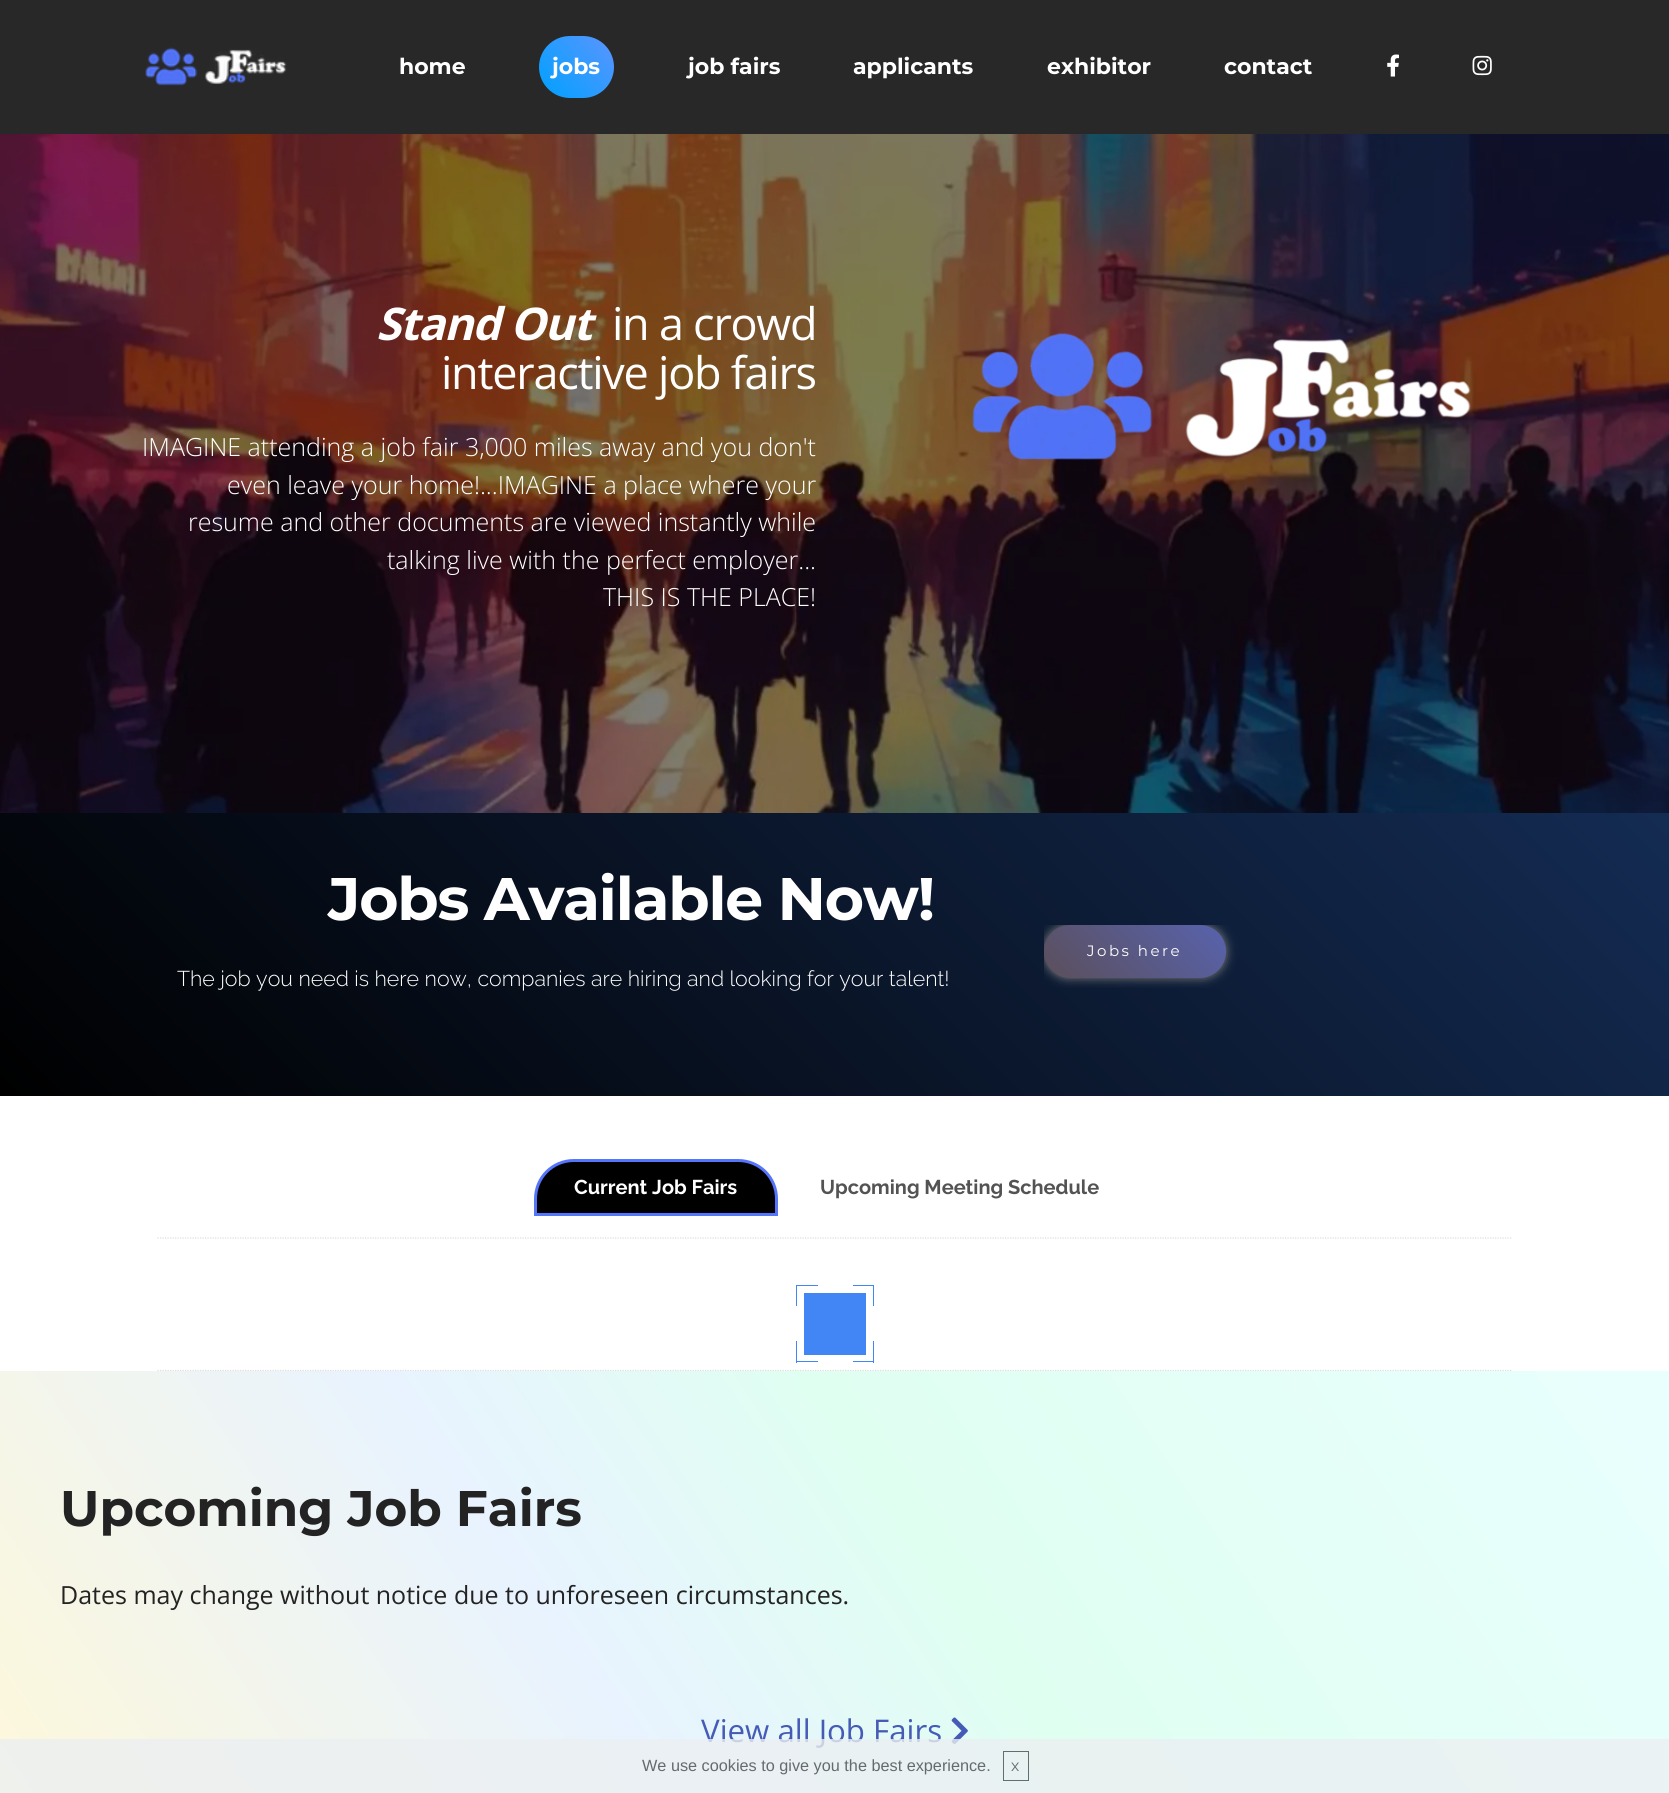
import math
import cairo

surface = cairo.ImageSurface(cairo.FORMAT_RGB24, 1669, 1793)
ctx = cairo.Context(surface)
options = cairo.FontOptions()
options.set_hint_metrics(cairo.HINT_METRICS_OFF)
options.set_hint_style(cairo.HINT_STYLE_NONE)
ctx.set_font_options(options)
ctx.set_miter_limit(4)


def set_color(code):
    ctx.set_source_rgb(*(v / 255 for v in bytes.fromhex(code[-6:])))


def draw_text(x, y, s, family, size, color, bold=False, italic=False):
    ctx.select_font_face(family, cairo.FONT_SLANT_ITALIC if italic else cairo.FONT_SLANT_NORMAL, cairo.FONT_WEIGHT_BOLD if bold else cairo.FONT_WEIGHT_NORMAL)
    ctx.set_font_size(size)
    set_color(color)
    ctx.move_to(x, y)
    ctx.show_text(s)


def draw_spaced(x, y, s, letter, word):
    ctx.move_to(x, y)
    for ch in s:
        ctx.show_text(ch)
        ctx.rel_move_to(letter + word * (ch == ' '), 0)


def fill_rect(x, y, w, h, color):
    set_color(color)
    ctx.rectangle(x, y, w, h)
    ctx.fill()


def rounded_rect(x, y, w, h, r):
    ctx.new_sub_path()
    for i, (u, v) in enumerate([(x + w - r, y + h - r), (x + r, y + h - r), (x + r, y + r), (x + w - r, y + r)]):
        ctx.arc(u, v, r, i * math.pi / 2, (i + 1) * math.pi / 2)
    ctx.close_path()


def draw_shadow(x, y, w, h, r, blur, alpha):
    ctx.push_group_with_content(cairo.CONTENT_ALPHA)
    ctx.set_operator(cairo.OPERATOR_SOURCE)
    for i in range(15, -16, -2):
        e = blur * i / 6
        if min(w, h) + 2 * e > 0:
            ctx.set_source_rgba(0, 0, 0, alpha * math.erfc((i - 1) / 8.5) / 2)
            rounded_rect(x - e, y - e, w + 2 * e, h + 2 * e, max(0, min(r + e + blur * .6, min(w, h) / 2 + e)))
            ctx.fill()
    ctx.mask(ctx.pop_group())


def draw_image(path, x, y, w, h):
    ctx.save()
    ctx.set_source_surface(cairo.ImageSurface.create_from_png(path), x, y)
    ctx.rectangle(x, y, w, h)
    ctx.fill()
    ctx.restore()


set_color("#ffffff")
ctx.paint()
fill_rect(0, 0, 1669, 134, "#282828")
draw_image("assets/img1.png", 145, 47, 142, 39)
draw_text(399, 74, "home", "Montserrat", 22, "#ffffff", bold=True)
gradient = cairo.LinearGradient(540, 99, 613, 35)
gradient.add_color_stop_rgba(0.02, 0, 0.631, 1, 1)
gradient.add_color_stop_rgba(1, 0.357, 0.584, 1, 1)
ctx.set_source(gradient)
rounded_rect(539, 36, 75, 62, 31)
ctx.fill()
draw_text(552, 74, "jobs", "Montserrat", 22, "#ffffff", bold=True)
draw_text(688, 74, "job fairs", "Montserrat", 22, "#ffffff", bold=True)
draw_text(853, 74, "applicants", "Montserrat", 22, "#ffffff", bold=True)
draw_text(1047, 74, "exhibitor", "Montserrat", 22, "#ffffff", bold=True)
draw_text(1224, 74, "contact", "Montserrat", 22, "#ffffff", bold=True)
draw_image("assets/img2.png", 1387, 54, 12, 23)
draw_image("assets/img3.png", 1472, 55, 20, 21)
draw_image("assets/img4.png", 0, 134, 1669, 679)
ctx.select_font_face("Open Sans", cairo.FONT_SLANT_ITALIC, cairo.FONT_WEIGHT_BOLD)
ctx.set_font_size(45)
draw_spaced(376, 340, "Stand Out", -1.25, 0)
ctx.select_font_face("Open Sans")
draw_spaced(612, 340, "in a crowd", -1.25, 0)
draw_spaced(441, 389, "interactive job fairs", -1.25, 0)
draw_text(142, 456, "IMAGINE attending a job fair 3,000 miles away and you don't", "Open Sans Light", 25, "#ffffff")
draw_text(227, 494, "even leave your home!...IMAGINE a place where your", "Open Sans Light", 25, "#ffffff")
draw_text(188, 531, "resume and other documents are viewed instantly while", "Open Sans Light", 25, "#ffffff")
draw_text(387, 569, "talking live with the perfect employer...", "Open Sans Light", 25, "#ffffff")
draw_text(603, 606, "THIS IS THE PLACE!", "Open Sans Light", 25, "#ffffff")
draw_image("assets/img5.png", 972, 332, 499, 128)
gradient = cairo.LinearGradient(347, 1443, 1323, 466)
gradient.add_color_stop_rgba(0, 0, 0, 0, 1)
gradient.add_color_stop_rgba(1, 0.078, 0.169, 0.325, 1)
ctx.set_source(gradient)
ctx.rectangle(0, 813, 1669, 283)
ctx.fill()
ctx.select_font_face("Montserrat", cairo.FONT_SLANT_NORMAL, cairo.FONT_WEIGHT_BOLD)
ctx.set_font_size(60)
set_color("#ffffff")
draw_spaced(328, 920, "Jobs Available Now!", -1.25, 0)
draw_text(177, 986, "The job you need is here now, companies are hiring and looking for your talent!", "Raleway Light", 21.4, "#ffffff")
ctx.save()
ctx.rectangle(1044, 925, 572, 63)
ctx.clip()
set_color("#808080")
draw_shadow(1044, 925, 182, 53, 26.5, 5, 1)
ctx.restore()
gradient = cairo.LinearGradient(1076, 1010, 1194, 893)
gradient.add_color_stop_rgba(0, 0.357, 0.31, 0.357, 1)
gradient.add_color_stop_rgba(1, 0.345, 0.388, 0.682, 1)
ctx.set_source(gradient)
rounded_rect(1044, 925, 182, 53, 26.5)
ctx.fill()
ctx.select_font_face("Montserrat")
ctx.set_font_size(15)
set_color("#ffffff")
draw_spaced(1087, 956, "Jobs here", 2.5, 0)
set_color("#000000")
ctx.new_path()
ctx.move_to(574, 1160.5)
ctx.line_to(738, 1160.5)
ctx.curve_to(759.5, 1160.5, 776.5, 1177.5, 776.5, 1199)
ctx.line_to(776.5, 1214.5)
ctx.line_to(535.5, 1214.5)
ctx.line_to(535.5, 1199)
ctx.curve_to(535.5, 1177.5, 552.5, 1160.5, 574, 1160.5)
ctx.close_path()
ctx.fill_preserve()
set_color("#5575fb")
ctx.set_line_width(3)
ctx.stroke()
draw_text(574, 1194, "Current Job Fairs", "Raleway", 20, "#ffffff", bold=True)
draw_text(820, 1194, "Upcoming Meeting Schedule", "Raleway", 20, "#535353", bold=True)
ctx.new_path()
ctx.move_to(157.5, 1238)
ctx.line_to(1512.5, 1238)
set_color("#dddddd")
ctx.set_line_width(1.2)
ctx.set_dash([1.25, 1.25])
ctx.stroke()
gradient = cairo.LinearGradient(145, 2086, 1525, 1156)
gradient.add_color_stop_rgba(0, 1, 0.973, 0.847, 1)
gradient.add_color_stop_rgba(0.36, 0.91, 0.953, 1, 1)
gradient.add_color_stop_rgba(0.57, 0.875, 1, 0.945, 1)
gradient.add_color_stop_rgba(1, 0.914, 1, 0.996, 1)
ctx.set_source(gradient)
ctx.rectangle(0, 1371, 1669, 422)
ctx.fill()
ctx.new_path()
ctx.move_to(157.5, 1370.5)
ctx.line_to(1512.5, 1370.5)
set_color("#dddddd")
ctx.stroke()
fill_rect(796, 1285, 22, 1, "#4285f4")
fill_rect(796, 1285, 1, 21, "#4285f4")
fill_rect(853, 1285, 21, 1, "#4285f4")
fill_rect(873, 1285, 1, 21, "#4285f4")
fill_rect(796, 1361, 22, 1, "#4285f4")
fill_rect(796, 1341, 1, 22, "#4285f4")
fill_rect(873, 1341, 1, 22, "#4285f4")
fill_rect(853, 1361, 21, 1, "#4285f4")
fill_rect(804, 1293, 62, 62, "#4285f4")
draw_text(60, 1526, "Upcoming Job Fairs", "Montserrat", 50, "#232323", bold=True)
draw_text(60, 1604, "Dates may change without notice due to unforeseen circumstances.", "Open Sans", 25, "#232323")
draw_text(701, 1742, "View all Job Fairs", "Open Sans", 31.25, "#455bb6")
draw_image("assets/img6.png", 951, 1717, 17, 28)
ctx.set_source_rgba(0.918, 0.937, 0.945, 0.8)
ctx.rectangle(0, 1739, 1669, 54)
ctx.fill()
draw_text(642, 1771, "We use cookies to give you the best experience.", "Liberation Sans", 16.25, "#636b6e")
ctx.rectangle(1003.5, 1751.5, 25, 29)
set_color("#626e6e")
ctx.set_line_width(1)
ctx.set_dash([])
ctx.stroke()
draw_text(1011, 1771, "x", "Raleway", 16.25, "#636b6e")
surface.write_to_png("output.png")
